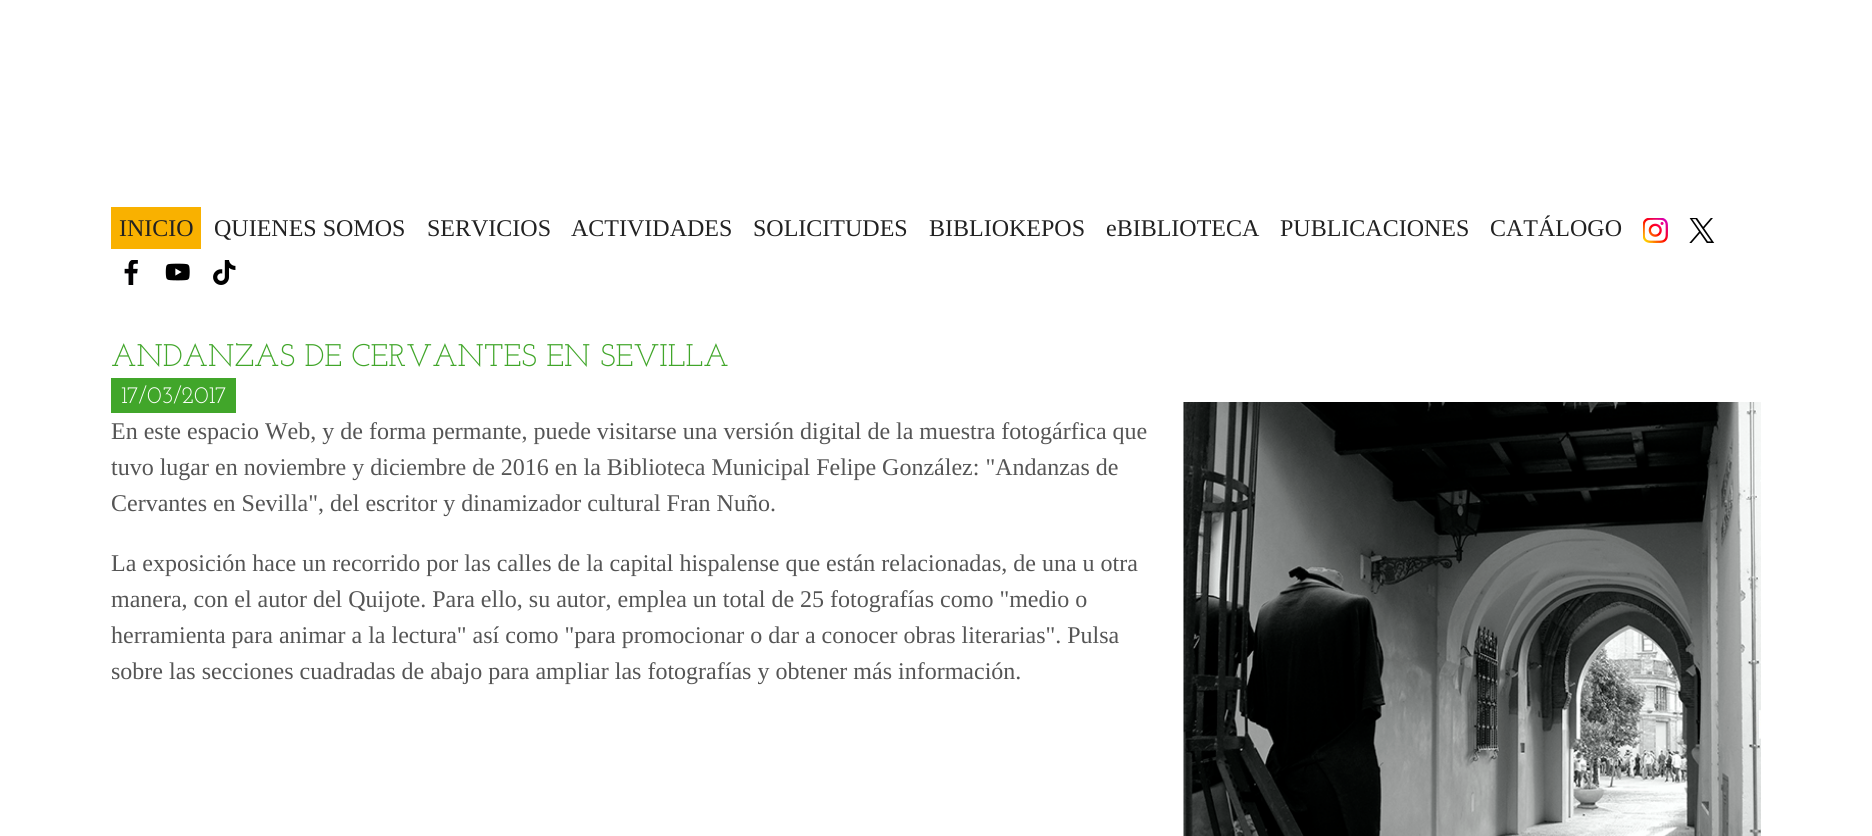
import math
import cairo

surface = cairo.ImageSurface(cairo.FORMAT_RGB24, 1872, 836)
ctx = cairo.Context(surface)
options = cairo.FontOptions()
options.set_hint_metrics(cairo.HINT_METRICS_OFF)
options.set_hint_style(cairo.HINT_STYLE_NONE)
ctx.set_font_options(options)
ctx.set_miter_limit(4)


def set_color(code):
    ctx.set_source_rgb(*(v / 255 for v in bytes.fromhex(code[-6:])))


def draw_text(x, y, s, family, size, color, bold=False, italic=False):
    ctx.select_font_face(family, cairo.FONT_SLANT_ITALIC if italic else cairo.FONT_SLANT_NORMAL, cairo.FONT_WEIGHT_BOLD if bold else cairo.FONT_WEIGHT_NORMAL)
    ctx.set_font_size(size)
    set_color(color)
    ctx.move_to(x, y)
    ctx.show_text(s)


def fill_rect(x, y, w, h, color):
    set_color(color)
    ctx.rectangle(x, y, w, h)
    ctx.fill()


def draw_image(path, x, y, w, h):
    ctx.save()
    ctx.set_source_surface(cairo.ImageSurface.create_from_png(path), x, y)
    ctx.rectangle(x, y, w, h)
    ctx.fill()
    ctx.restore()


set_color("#ffffff")
ctx.paint()
fill_rect(111, 207, 90, 42, "#f9b100")
draw_text(119, 236, "INICIO", "Liberation Serif", 24, "#222222")
draw_text(214, 236, "QUIENES SOMOS", "Liberation Serif", 24, "#222222")
draw_text(427, 236, "SERVICIOS", "Liberation Serif", 24, "#222222")
draw_text(571, 236, "ACTIVIDADES", "Liberation Serif", 24, "#222222")
draw_text(753, 236, "SOLICITUDES", "Liberation Serif", 24, "#222222")
draw_text(929, 236, "BIBLIOKEPOS", "Liberation Serif", 24, "#222222")
draw_text(1106, 236, "eBIBLIOTECA", "Liberation Serif", 24, "#222222")
draw_text(1280, 236, "PUBLICACIONES", "Liberation Serif", 24, "#222222")
draw_text(1490, 236, "CATÁLOGO", "Liberation Serif", 24, "#222222")
draw_image("assets/img1.png", 1643, 218, 25, 25)
draw_image("assets/img2.png", 1689, 218, 26, 25)
draw_image("assets/img3.png", 124, 260, 14, 25)
draw_image("assets/img4.png", 165, 263, 25, 18)
draw_image("assets/img5.png", 213, 260, 23, 25)
draw_text(111, 366, "ANDANZAS DE CERVANTES EN SEVILLA", "Josefin Slab", 31.25, "#41a62a")
fill_rect(111, 378, 125, 35, "#41a62a")
draw_text(121, 403, "17/03/2017", "Josefin Slab", 24, "#ffffff")
draw_text(111, 439, "En este espacio Web, y de forma permante, puede visitarse una versión digital de la muestra fotogárfica que", "Liberation Serif", 24, "#555555")
draw_text(111, 475, "tuvo lugar en noviembre y diciembre de 2016 en la Biblioteca Municipal Felipe González: \"Andanzas de", "Liberation Serif", 24, "#555555")
draw_text(111, 511, "Cervantes en Sevilla\", del escritor y dinamizador cultural Fran Nuño.", "Liberation Serif", 24, "#555555")
draw_image("assets/img6.png", 1183, 402, 578, 434)
draw_text(111, 571, "La exposición hace un recorrido por las calles de la capital hispalense que están relacionadas, de una u otra", "Liberation Serif", 24, "#555555")
draw_text(111, 607, "manera, con el autor del Quijote. Para ello, su autor, emplea un total de 25 fotografías como \"medio o", "Liberation Serif", 24, "#555555")
draw_text(111, 643, "herramienta para animar a la lectura\" así como \"para promocionar o dar a conocer obras literarias\". Pulsa", "Liberation Serif", 24, "#555555")
draw_text(111, 679, "sobre las secciones cuadradas de abajo para ampliar las fotografías y obtener más información.", "Liberation Serif", 24, "#555555")
surface.write_to_png("output.png")
